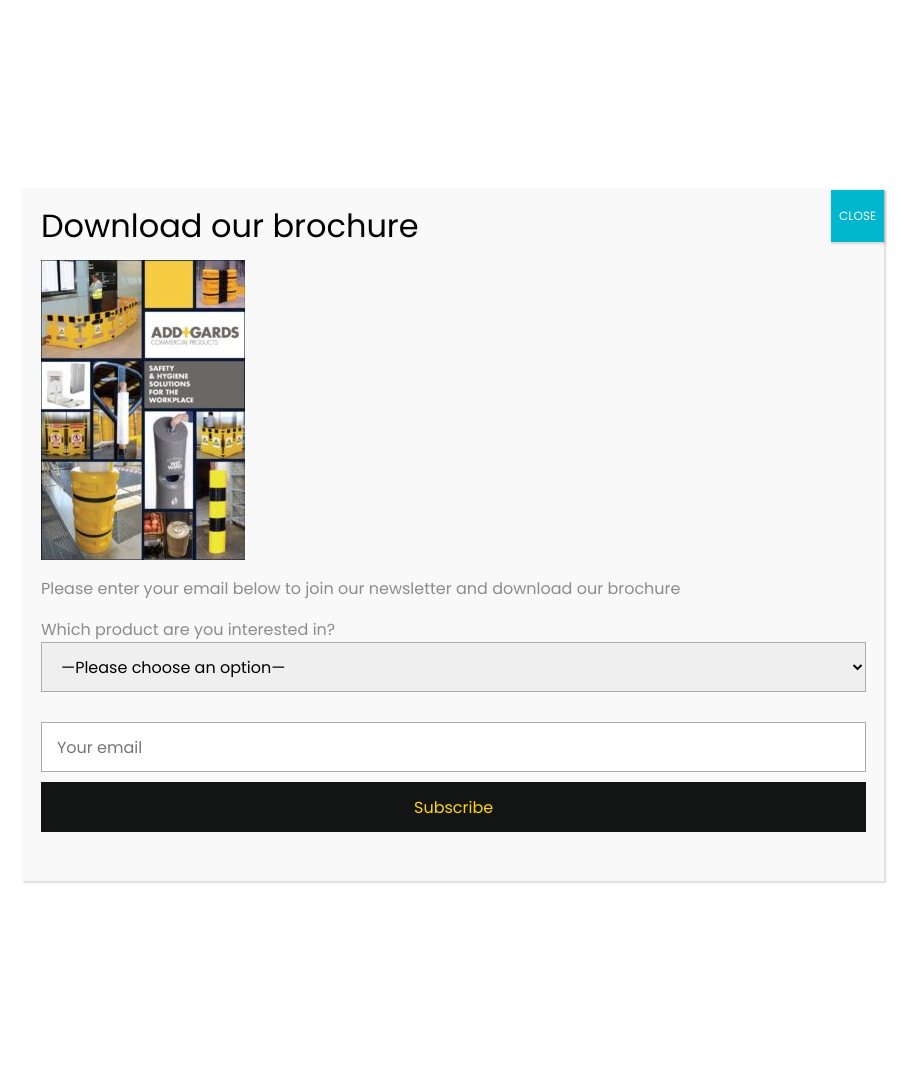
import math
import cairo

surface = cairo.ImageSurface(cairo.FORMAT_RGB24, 907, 1071)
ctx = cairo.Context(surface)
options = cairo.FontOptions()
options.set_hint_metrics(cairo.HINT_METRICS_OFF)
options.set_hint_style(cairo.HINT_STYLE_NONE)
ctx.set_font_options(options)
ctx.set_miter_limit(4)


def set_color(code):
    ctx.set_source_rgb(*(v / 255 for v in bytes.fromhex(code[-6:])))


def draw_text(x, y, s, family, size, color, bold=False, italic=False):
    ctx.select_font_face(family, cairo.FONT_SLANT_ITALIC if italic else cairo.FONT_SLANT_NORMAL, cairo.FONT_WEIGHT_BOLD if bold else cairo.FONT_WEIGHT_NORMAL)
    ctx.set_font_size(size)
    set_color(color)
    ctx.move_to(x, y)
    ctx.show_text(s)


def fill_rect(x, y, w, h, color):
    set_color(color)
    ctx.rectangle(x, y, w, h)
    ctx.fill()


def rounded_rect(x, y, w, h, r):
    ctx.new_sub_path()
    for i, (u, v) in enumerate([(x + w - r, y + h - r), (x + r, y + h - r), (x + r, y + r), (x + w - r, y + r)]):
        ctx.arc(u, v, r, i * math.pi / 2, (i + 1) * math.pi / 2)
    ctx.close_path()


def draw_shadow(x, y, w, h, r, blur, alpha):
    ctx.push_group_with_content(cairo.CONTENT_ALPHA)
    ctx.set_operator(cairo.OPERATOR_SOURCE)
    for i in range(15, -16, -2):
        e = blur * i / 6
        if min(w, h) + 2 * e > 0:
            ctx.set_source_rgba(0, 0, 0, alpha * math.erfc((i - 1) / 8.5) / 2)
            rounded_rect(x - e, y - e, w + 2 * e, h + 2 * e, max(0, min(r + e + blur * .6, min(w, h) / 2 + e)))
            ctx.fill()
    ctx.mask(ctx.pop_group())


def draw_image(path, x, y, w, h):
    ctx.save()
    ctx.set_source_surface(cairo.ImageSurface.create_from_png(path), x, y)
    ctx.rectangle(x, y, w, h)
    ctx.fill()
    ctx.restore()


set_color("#ffffff")
ctx.paint()
set_color("#020202")
draw_shadow(24, 191, 861, 691, 0, 1.5, 0.23)
fill_rect(23, 190, 861, 691, "#f9f9f9")
draw_text(41, 237, "Download our brochure", "Poppins", 32, "#000000")
set_color("#020202")
draw_shadow(832, 191, 53, 52, 0, 1.5, 0.23)
fill_rect(831, 190, 53, 52, "#00b7cd")
draw_text(839, 220, "CLOSE", "Poppins", 12, "#ffffff")
draw_image("assets/img1.png", 41, 260, 204, 300)
draw_text(41, 594, "Please enter your email below to join our newsletter and download our brochure", "Poppins", 16, "#8c8c8c")
draw_text(41, 635, "Which product are you interested in?", "Poppins", 16, "#8c8c8c")
set_color("#efefef")
ctx.rectangle(41.5, 642.5, 824, 49)
ctx.fill_preserve()
set_color("#aaabaf")
ctx.set_line_width(1)
ctx.stroke()
ctx.new_path()
ctx.move_to(853.5, 665)
ctx.line_to(857.5, 669)
ctx.line_to(861.5, 665)
set_color("#000000")
ctx.set_line_width(2)
ctx.stroke()
draw_text(61, 673, "—Please choose an option—", "Poppins", 16, "#000000")
set_color("#ffffff")
ctx.rectangle(41.5, 722.5, 824, 49)
ctx.fill_preserve()
set_color("#aaabaf")
ctx.set_line_width(1)
ctx.stroke()
draw_text(57, 753, "Your email", "Poppins", 16, "#757575")
fill_rect(41, 782, 825, 50, "#131515")
draw_text(414, 813, "Subscribe", "Poppins", 16, "#ffd400")
surface.write_to_png("output.png")
